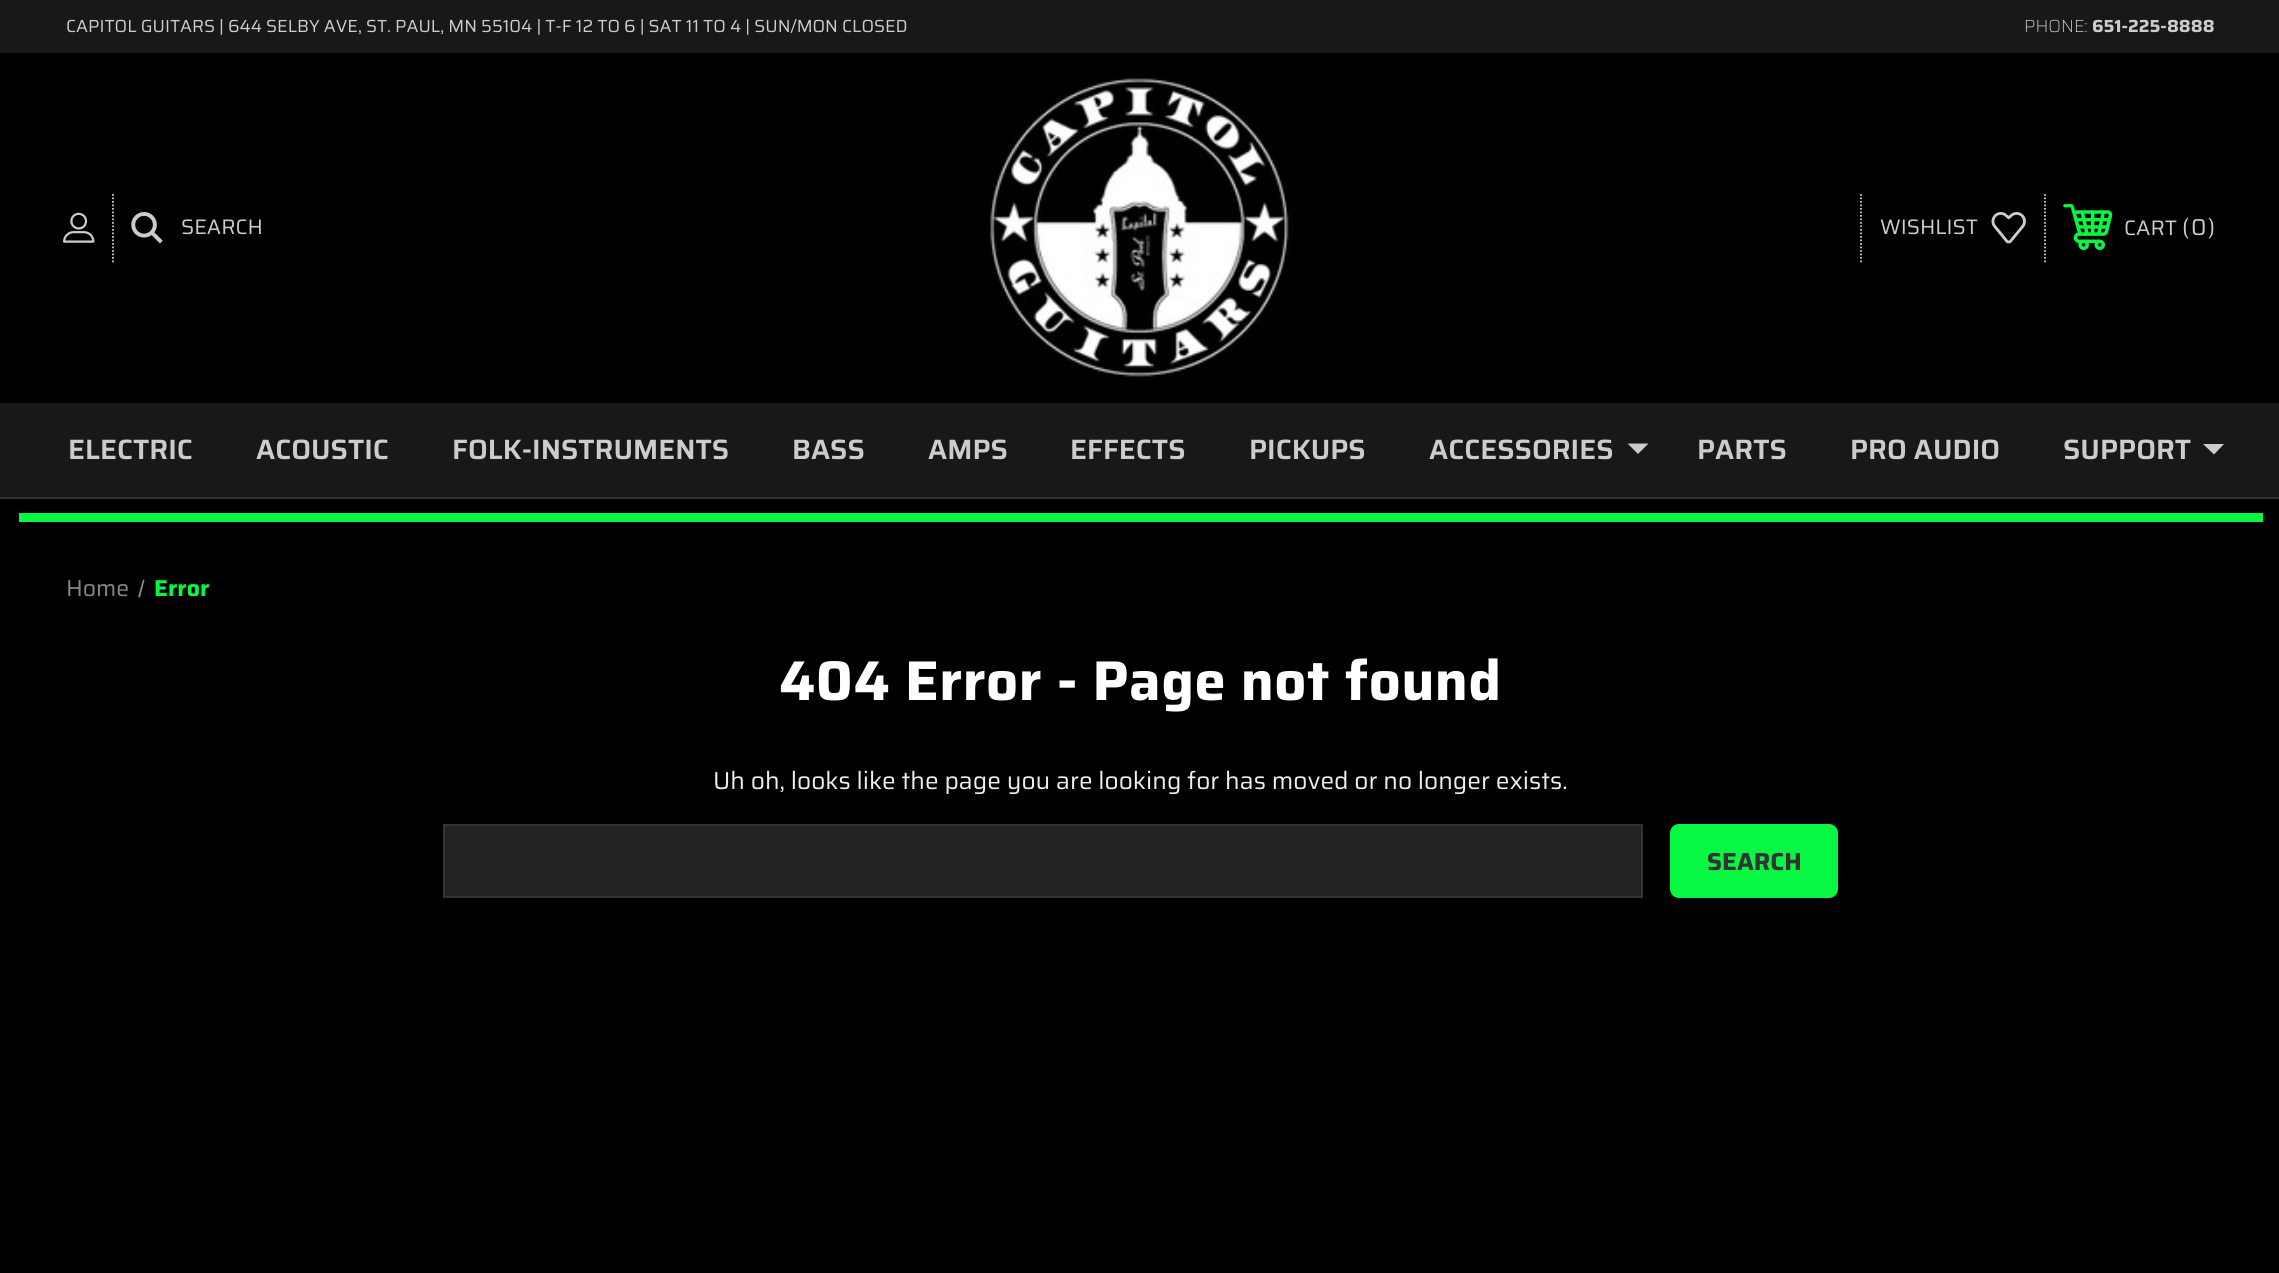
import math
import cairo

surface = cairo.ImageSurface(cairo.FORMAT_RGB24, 2279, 1273)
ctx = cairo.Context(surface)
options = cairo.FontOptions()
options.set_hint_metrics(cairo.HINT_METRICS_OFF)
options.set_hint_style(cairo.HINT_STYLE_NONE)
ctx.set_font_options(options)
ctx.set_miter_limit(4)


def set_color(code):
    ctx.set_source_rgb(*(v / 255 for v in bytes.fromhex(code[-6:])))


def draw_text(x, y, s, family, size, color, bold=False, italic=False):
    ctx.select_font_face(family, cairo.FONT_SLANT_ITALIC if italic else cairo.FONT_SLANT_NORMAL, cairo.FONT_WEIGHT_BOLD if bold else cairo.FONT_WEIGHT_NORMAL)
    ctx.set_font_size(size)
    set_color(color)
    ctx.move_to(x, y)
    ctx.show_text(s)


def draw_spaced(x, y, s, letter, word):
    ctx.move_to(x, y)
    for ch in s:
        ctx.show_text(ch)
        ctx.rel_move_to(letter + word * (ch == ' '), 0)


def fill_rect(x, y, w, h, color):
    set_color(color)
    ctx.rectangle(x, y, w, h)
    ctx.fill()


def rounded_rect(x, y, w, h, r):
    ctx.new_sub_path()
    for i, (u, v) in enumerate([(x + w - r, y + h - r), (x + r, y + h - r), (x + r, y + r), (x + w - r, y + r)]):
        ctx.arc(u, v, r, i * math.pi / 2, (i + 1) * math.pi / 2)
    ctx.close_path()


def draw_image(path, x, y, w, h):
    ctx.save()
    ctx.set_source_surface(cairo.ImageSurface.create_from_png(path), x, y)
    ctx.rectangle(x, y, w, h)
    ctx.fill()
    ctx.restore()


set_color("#000000")
ctx.paint()
fill_rect(0, 0, 2279, 53, "#181818")
draw_text(66, 32, "CAPITOL GUITARS | 644 SELBY AVE, ST. PAUL, MN 55104 | T-F 12 TO 6 | SAT 11 TO 4 | SUN/MON CLOSED", "Saira", 17.5, "#cccccc")
draw_text(2024, 32, "PHONE:", "Saira ExtraLight", 17.5, "#cccccc")
draw_text(2092, 32, "651-225-8888", "Saira", 17.5, "#cccccc", bold=True)
fill_rect(0, 497, 2279, 2, "#333333")
draw_image("assets/img1.png", 63, 212, 32, 31)
ctx.new_path()
ctx.move_to(113, 194)
ctx.line_to(113, 262.5)
set_color("#cccccc")
ctx.set_line_width(1.8)
ctx.set_dash([1.75, 1.75])
ctx.stroke()
draw_image("assets/img2.png", 131, 212, 32, 32)
draw_text(181, 234, "SEARCH", "Saira", 21, "#cccccc")
draw_image("assets/img3.png", 989, 76, 304, 301)
ctx.new_path()
ctx.move_to(2045, 194)
ctx.line_to(2045, 262.5)
ctx.stroke()
ctx.new_path()
ctx.move_to(1861, 194)
ctx.line_to(1861, 262.5)
ctx.stroke()
draw_text(1880, 234, "WISHLIST", "Saira", 21, "#cccccc")
draw_image("assets/img4.png", 1991, 212, 35, 32)
draw_image("assets/img5.png", 2063, 204, 50, 46)
draw_text(2124, 235, "CART", "Saira", 21, "#cccccc")
draw_text(2182, 235, "(", "Saira", 23, "#cccccc")
draw_text(2191, 235, "0", "Saira", 23, "#cccccc")
draw_text(2208, 235, ")", "Saira", 23, "#cccccc")
fill_rect(0, 403, 2279, 94, "#181818")
draw_text(68, 459, "ELECTRIC", "Saira SemiBold", 28, "#cccccc")
draw_text(256, 459, "ACOUSTIC", "Saira SemiBold", 28, "#cccccc")
draw_text(452, 459, "FOLK-INSTRUMENTS", "Saira SemiBold", 28, "#cccccc")
draw_text(792, 459, "BASS", "Saira SemiBold", 28, "#cccccc")
draw_text(928, 459, "AMPS", "Saira SemiBold", 28, "#cccccc")
draw_text(1070, 459, "EFFECTS", "Saira SemiBold", 28, "#cccccc")
draw_text(1249, 459, "PICKUPS", "Saira SemiBold", 28, "#cccccc")
draw_text(1429, 459, "ACCESSORIES", "Saira SemiBold", 28, "#cccccc")
ctx.new_path()
ctx.move_to(1627.5, 443.5)
ctx.line_to(1638, 454)
ctx.line_to(1648.5, 443.5)
ctx.close_path()
ctx.fill()
draw_text(1697, 459, "PARTS", "Saira SemiBold", 28, "#cccccc")
draw_text(1850, 459, "PRO AUDIO", "Saira SemiBold", 28, "#cccccc")
draw_text(2063, 459, "SUPPORT", "Saira SemiBold", 28, "#cccccc")
ctx.new_path()
ctx.move_to(2203, 444)
ctx.line_to(2214, 454.5)
ctx.line_to(2224, 444)
ctx.close_path()
ctx.fill()
fill_rect(19, 513, 2244, 9, "#07f743")
draw_text(66, 596, "Home", "Saira", 23, "#888888")
ctx.new_path()
ctx.move_to(143, 579.5)
ctx.line_to(144.5, 580)
ctx.line_to(140, 597.5)
ctx.line_to(138, 597)
ctx.close_path()
ctx.fill()
draw_text(154, 596, "Error", "Saira", 23, "#07f743", bold=True)
ctx.set_font_size(56)
set_color("#ffffff")
draw_spaced(779, 700, "404 Error - Page not found", 0.45, 0)
draw_text(713, 789, "Uh oh, looks like the page you are looking for has moved or no longer exists.", "Saira", 24.5, "#eeeeee")
set_color("#222222")
ctx.rectangle(444, 825, 1198, 72)
ctx.fill_preserve()
set_color("#333333")
ctx.set_line_width(2)
ctx.set_dash([])
ctx.stroke()
set_color("#07f743")
rounded_rect(1671, 825, 166, 72, 8)
ctx.fill_preserve()
ctx.stroke()
draw_text(1707, 870, "SEARCH", "Saira", 24.5, "#333333", bold=True)
surface.write_to_png("output.png")
